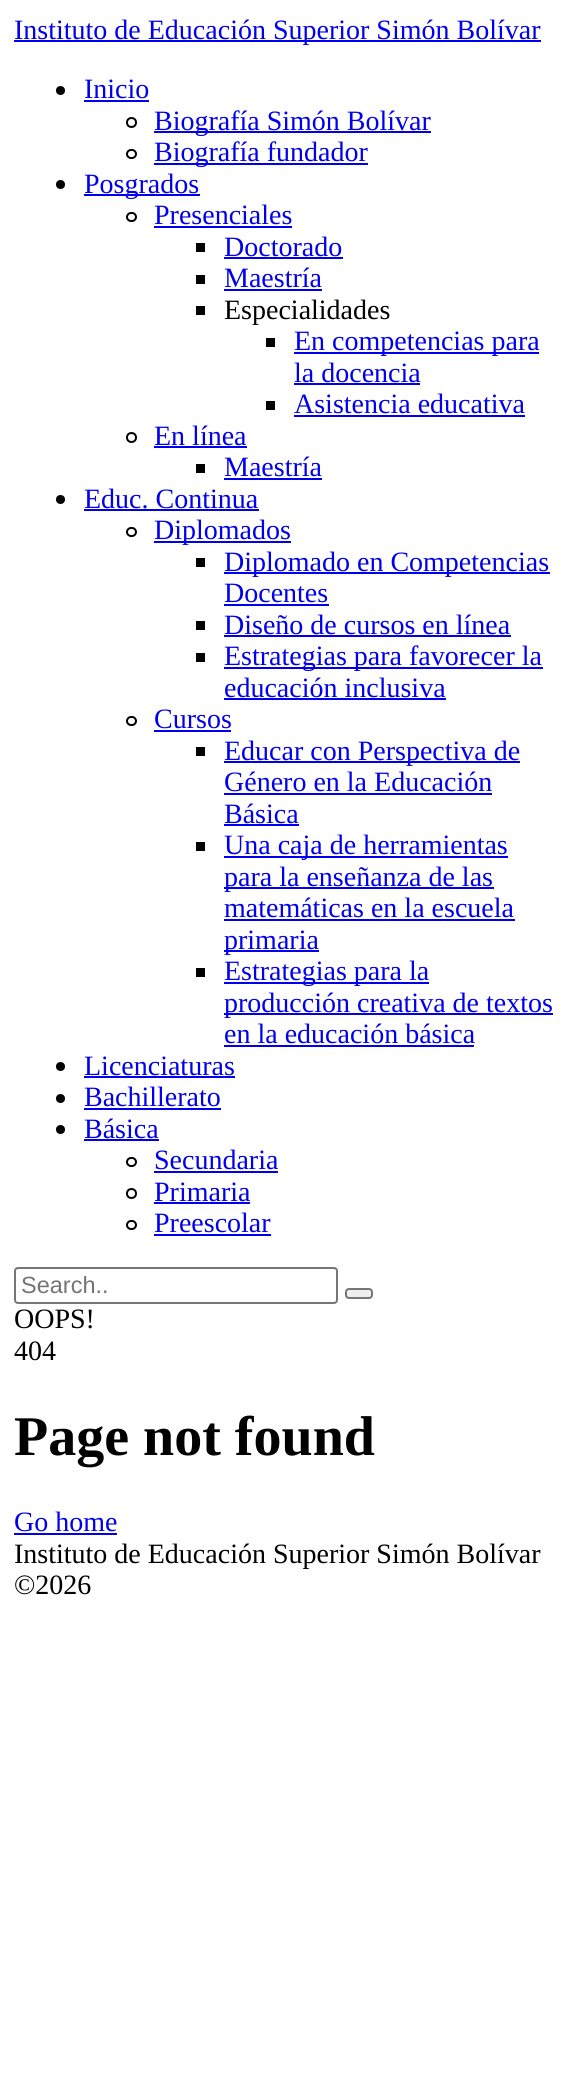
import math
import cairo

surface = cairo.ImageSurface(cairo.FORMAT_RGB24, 568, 2096)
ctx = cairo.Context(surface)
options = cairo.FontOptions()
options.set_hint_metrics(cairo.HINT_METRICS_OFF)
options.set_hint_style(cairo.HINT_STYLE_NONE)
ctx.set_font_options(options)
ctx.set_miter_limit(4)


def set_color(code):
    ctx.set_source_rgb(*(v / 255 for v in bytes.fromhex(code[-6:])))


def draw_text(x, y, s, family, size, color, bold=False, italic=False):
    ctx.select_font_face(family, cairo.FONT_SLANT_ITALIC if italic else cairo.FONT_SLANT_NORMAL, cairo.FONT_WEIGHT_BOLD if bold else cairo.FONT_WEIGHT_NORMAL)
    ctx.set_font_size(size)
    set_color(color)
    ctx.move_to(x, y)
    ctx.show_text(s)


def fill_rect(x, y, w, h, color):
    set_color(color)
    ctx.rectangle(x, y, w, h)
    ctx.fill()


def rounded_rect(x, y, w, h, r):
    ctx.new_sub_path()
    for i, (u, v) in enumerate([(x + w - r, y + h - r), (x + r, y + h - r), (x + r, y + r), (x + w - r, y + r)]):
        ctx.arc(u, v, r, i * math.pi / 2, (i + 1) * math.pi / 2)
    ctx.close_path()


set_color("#ffffff")
ctx.paint()
fill_rect(14, 40, 527, 2, "#0000ee")
draw_text(14, 39, "Instituto de Educación Superior Simón Bolívar", "Liberation Serif", 28, "#0000ee")
set_color("#000000")
ctx.new_path()
ctx.arc(60.5, 90.5, 4.5, 0, 2 * math.pi)
ctx.fill()
draw_text(84, 98, "Inicio", "Liberation Serif", 28, "#0000ee")
fill_rect(84, 100, 65, 2, "#0000ee")
ctx.new_path()
ctx.arc(131.5, 122.5, 4.5, 0, 2 * math.pi)
set_color("#000000")
ctx.stroke()
fill_rect(154, 131, 277, 2, "#0000ee")
draw_text(154, 130, "Biografía Simón Bolívar", "Liberation Serif", 28, "#0000ee")
rounded_rect(127, 150, 9, 8, 4)
set_color("#000000")
ctx.stroke()
fill_rect(154, 163, 214, 2, "#0000ee")
draw_text(154, 161, "Biografía fundador", "Liberation Serif", 28, "#0000ee")
set_color("#000000")
ctx.new_path()
ctx.arc(60.5, 184.5, 4.5, 0, 2 * math.pi)
ctx.fill()
fill_rect(84, 194, 116, 2, "#0000ee")
draw_text(84, 193, "Posgrados", "Liberation Serif", 28, "#0000ee")
rounded_rect(127, 213, 9, 8, 4)
set_color("#000000")
ctx.stroke()
draw_text(154, 224, "Presenciales", "Liberation Serif", 28, "#0000ee")
fill_rect(154, 226, 138, 2, "#0000ee")
fill_rect(196, 243, 9, 9, "#000000")
draw_text(224, 256, "Doctorado", "Liberation Serif", 28, "#0000ee")
fill_rect(224, 257, 119, 2, "#0000ee")
fill_rect(196, 275, 9, 9, "#000000")
draw_text(224, 287, "Maestría", "Liberation Serif", 28, "#0000ee")
fill_rect(224, 289, 98, 2, "#0000ee")
fill_rect(196, 306, 9, 9, "#000000")
draw_text(224, 319, "Especialidades", "Liberation Serif", 28, "#000000")
fill_rect(266, 338, 9, 9, "#000000")
fill_rect(294, 352, 245, 2, "#0000ee")
draw_text(294, 350, "En competencias para", "Liberation Serif", 28, "#0000ee")
draw_text(294, 382, "la docencia", "Liberation Serif", 28, "#0000ee")
fill_rect(294, 383, 126, 2, "#0000ee")
fill_rect(266, 401, 9, 9, "#000000")
draw_text(294, 413, "Asistencia educativa", "Liberation Serif", 28, "#0000ee")
fill_rect(294, 415, 231, 2, "#0000ee")
ctx.new_path()
ctx.arc(131.5, 437.5, 4.5, 0, 2 * math.pi)
set_color("#000000")
ctx.stroke()
draw_text(154, 445, "En línea", "Liberation Serif", 28, "#0000ee")
fill_rect(154, 446, 93, 2, "#0000ee")
fill_rect(196, 464, 9, 9, "#000000")
draw_text(224, 476, "Maestría", "Liberation Serif", 28, "#0000ee")
fill_rect(224, 478, 98, 2, "#0000ee")
set_color("#000000")
ctx.new_path()
ctx.arc(60.5, 499.5, 4.5, 0, 2 * math.pi)
ctx.fill()
draw_text(84, 508, "Educ. Continua", "Liberation Serif", 28, "#0000ee")
fill_rect(84, 509, 175, 2, "#0000ee")
rounded_rect(127, 528, 9, 8, 4)
set_color("#000000")
ctx.stroke()
fill_rect(154, 541, 137, 2, "#0000ee")
draw_text(154, 539, "Diplomados", "Liberation Serif", 28, "#0000ee")
fill_rect(196, 558, 9, 9, "#000000")
fill_rect(224, 572, 326, 2, "#0000ee")
draw_text(224, 571, "Diplomado en Competencias", "Liberation Serif", 28, "#0000ee")
draw_text(224, 602, "Docentes", "Liberation Serif", 28, "#0000ee")
fill_rect(224, 604, 105, 2, "#0000ee")
fill_rect(196, 621, 9, 9, "#000000")
draw_text(224, 634, "Diseño de cursos en línea", "Liberation Serif", 28, "#0000ee")
fill_rect(224, 635, 287, 2, "#0000ee")
fill_rect(196, 653, 9, 9, "#000000")
fill_rect(224, 667, 319, 2, "#0000ee")
draw_text(224, 665, "Estrategias para favorecer la", "Liberation Serif", 28, "#0000ee")
draw_text(224, 697, "educación inclusiva", "Liberation Serif", 28, "#0000ee")
fill_rect(224, 698, 222, 2, "#0000ee")
rounded_rect(127, 717, 9, 8, 4)
set_color("#000000")
ctx.stroke()
draw_text(154, 728, "Cursos", "Liberation Serif", 28, "#0000ee")
fill_rect(154, 730, 77, 2, "#0000ee")
fill_rect(196, 747, 9, 9, "#000000")
fill_rect(224, 761, 296, 2, "#0000ee")
draw_text(224, 760, "Educar con Perspectiva de", "Liberation Serif", 28, "#0000ee")
draw_text(224, 791, "Género en la Educación", "Liberation Serif", 28, "#0000ee")
fill_rect(224, 793, 268, 2, "#0000ee")
draw_text(224, 823, "Básica", "Liberation Serif", 28, "#0000ee")
fill_rect(224, 824, 75, 2, "#0000ee")
fill_rect(196, 842, 9, 9, "#000000")
fill_rect(224, 856, 284, 2, "#0000ee")
draw_text(224, 854, "Una caja de herramientas", "Liberation Serif", 28, "#0000ee")
fill_rect(224, 887, 270, 2, "#0000ee")
draw_text(224, 886, "para la enseñanza de las", "Liberation Serif", 28, "#0000ee")
draw_text(224, 917, "matemáticas en la escuela", "Liberation Serif", 28, "#0000ee")
fill_rect(224, 919, 291, 2, "#0000ee")
fill_rect(224, 950, 95, 2, "#0000ee")
draw_text(224, 949, "primaria", "Liberation Serif", 28, "#0000ee")
fill_rect(196, 968, 9, 9, "#000000")
fill_rect(224, 982, 205, 2, "#0000ee")
draw_text(224, 980, "Estrategias para la", "Liberation Serif", 28, "#0000ee")
fill_rect(224, 1013, 329, 2, "#0000ee")
draw_text(224, 1012, "producción creativa de textos", "Liberation Serif", 28, "#0000ee")
draw_text(224, 1043, "en la educación básica", "Liberation Serif", 28, "#0000ee")
fill_rect(224, 1045, 250, 2, "#0000ee")
set_color("#000000")
ctx.new_path()
ctx.arc(60.5, 1066.5, 4.5, 0, 2 * math.pi)
ctx.fill()
draw_text(84, 1075, "Licenciaturas", "Liberation Serif", 28, "#0000ee")
fill_rect(84, 1076, 151, 2, "#0000ee")
set_color("#000000")
ctx.new_path()
ctx.arc(60.5, 1098.5, 4.5, 0, 2 * math.pi)
ctx.fill()
draw_text(84, 1106, "Bachillerato", "Liberation Serif", 28, "#0000ee")
fill_rect(84, 1108, 137, 2, "#0000ee")
set_color("#000000")
ctx.new_path()
ctx.arc(60.5, 1129.5, 4.5, 0, 2 * math.pi)
ctx.fill()
draw_text(84, 1138, "Básica", "Liberation Serif", 28, "#0000ee")
fill_rect(84, 1139, 75, 2, "#0000ee")
rounded_rect(127, 1158, 9, 8, 4)
set_color("#000000")
ctx.stroke()
draw_text(154, 1169, "Secundaria", "Liberation Serif", 28, "#0000ee")
fill_rect(154, 1171, 124, 2, "#0000ee")
ctx.new_path()
ctx.arc(131.5, 1193.5, 4.5, 0, 2 * math.pi)
set_color("#000000")
ctx.stroke()
draw_text(154, 1201, "Primaria", "Liberation Serif", 28, "#0000ee")
fill_rect(154, 1202, 96, 2, "#0000ee")
rounded_rect(127, 1221, 9, 8, 4)
set_color("#000000")
ctx.stroke()
draw_text(154, 1232, "Preescolar", "Liberation Serif", 28, "#0000ee")
fill_rect(154, 1234, 117, 2, "#0000ee")
rounded_rect(15, 1268, 322, 35, 3)
set_color("#767676")
ctx.stroke()
draw_text(21, 1293, "Search..", "Liberation Sans", 23.5, "#757575")
set_color("#efefef")
rounded_rect(346, 1289, 26, 9, 3)
ctx.fill_preserve()
set_color("#767676")
ctx.stroke()
draw_text(14, 1328, "OOPS!", "Liberation Serif", 28, "#000000")
draw_text(14, 1360, "404", "Liberation Serif", 28, "#000000")
draw_text(14, 1455, "Page not found", "Liberation Serif", 56, "#000000", bold=True)
draw_text(14, 1531, "Go home", "Liberation Serif", 28, "#0000ee")
fill_rect(14, 1533, 103, 2, "#0000ee")
draw_text(14, 1563, "Instituto de Educación Superior Simón Bolívar", "Liberation Serif", 28, "#000000")
draw_text(14, 1594, "©2026", "Liberation Serif", 28, "#000000")
surface.write_to_png("output.png")
